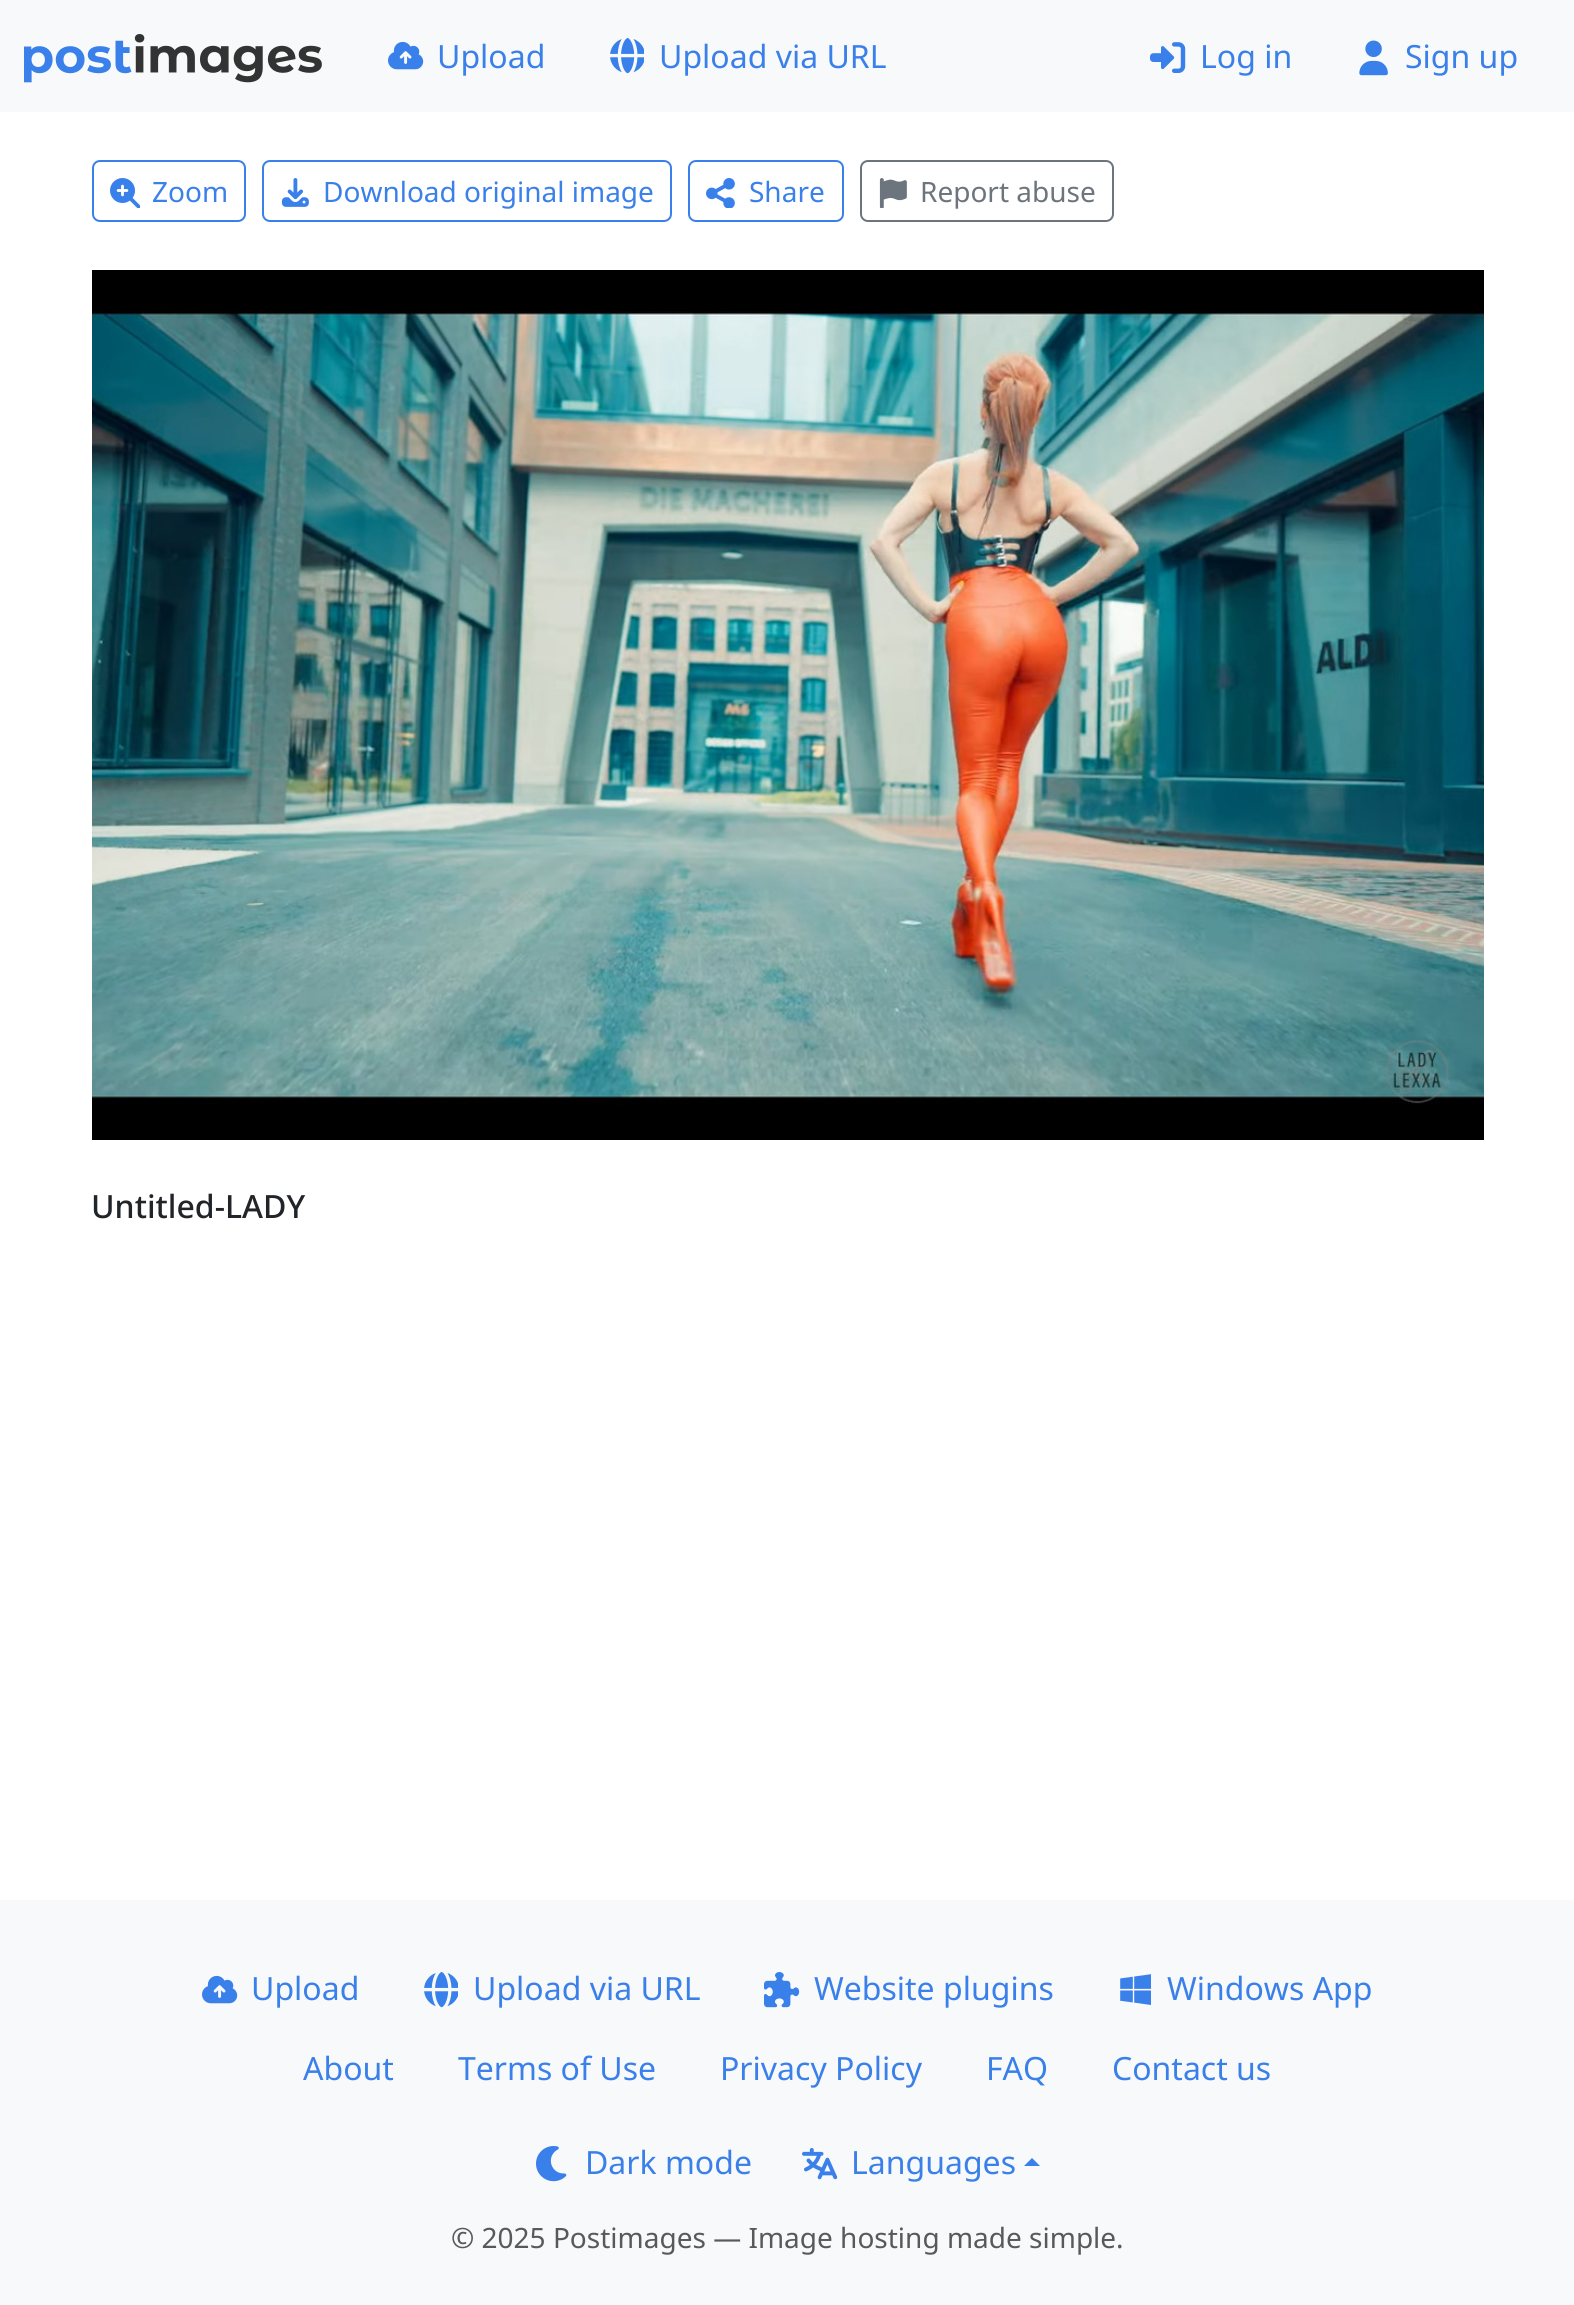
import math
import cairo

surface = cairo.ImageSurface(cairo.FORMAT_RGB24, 1574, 2305)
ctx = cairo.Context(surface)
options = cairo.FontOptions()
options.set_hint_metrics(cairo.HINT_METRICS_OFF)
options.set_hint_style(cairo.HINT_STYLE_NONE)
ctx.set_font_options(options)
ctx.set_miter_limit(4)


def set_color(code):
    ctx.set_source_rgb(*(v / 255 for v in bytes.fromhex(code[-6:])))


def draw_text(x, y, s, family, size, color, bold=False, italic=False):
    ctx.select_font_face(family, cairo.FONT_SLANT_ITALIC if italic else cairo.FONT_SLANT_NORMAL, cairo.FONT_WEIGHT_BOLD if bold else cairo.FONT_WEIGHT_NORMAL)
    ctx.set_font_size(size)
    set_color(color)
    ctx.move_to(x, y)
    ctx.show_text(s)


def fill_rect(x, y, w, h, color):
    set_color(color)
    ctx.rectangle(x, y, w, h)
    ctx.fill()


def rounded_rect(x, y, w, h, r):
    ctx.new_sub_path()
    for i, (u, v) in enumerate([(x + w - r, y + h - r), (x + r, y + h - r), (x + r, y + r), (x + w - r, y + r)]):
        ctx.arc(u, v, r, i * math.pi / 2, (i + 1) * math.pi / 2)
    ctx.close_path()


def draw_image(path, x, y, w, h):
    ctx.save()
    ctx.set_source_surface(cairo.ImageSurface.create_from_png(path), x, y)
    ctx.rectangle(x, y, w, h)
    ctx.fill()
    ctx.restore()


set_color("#ffffff")
ctx.paint()
fill_rect(0, 0, 1574, 112, "#f8f9fa")
draw_image("assets/img1.png", 24, 34, 298, 49)
draw_image("assets/img2.png", 388, 41, 36, 29)
draw_text(437, 68, "Upload", "Noto Sans", 32, "#3a80ea")
draw_image("assets/img3.png", 610, 38, 34, 36)
draw_text(659, 68, "Upload via URL", "Noto Sans", 32, "#3a80ea")
draw_image("assets/img4.png", 1150, 42, 36, 31)
draw_text(1200, 68, "Log in", "Noto Sans", 32, "#3a80ea")
draw_image("assets/img5.png", 1359, 40, 29, 36)
draw_text(1405, 68, "Sign up", "Noto Sans", 32, "#3a80ea")
rounded_rect(93, 161, 152, 60, 7)
ctx.stroke()
draw_image("assets/img6.png", 110, 178, 30, 30)
draw_text(152, 202, "Zoom", "Noto Sans", 28, "#3a80ea")
rounded_rect(263, 161, 408, 60, 7)
ctx.stroke()
draw_image("assets/img7.png", 281, 178, 28, 29)
draw_text(323, 202, "Download original image", "Noto Sans", 28, "#3a80ea")
rounded_rect(689, 161, 154, 60, 7)
ctx.stroke()
draw_image("assets/img8.png", 706, 178, 29, 30)
draw_text(749, 202, "Share", "Noto Sans", 28, "#3a80ea")
rounded_rect(861, 161, 252, 60, 7)
set_color("#6c757d")
ctx.stroke()
draw_image("assets/img9.png", 879, 178, 28, 30)
draw_text(920, 202, "Report abuse", "Noto Sans", 28, "#6c757d")
draw_image("assets/img10.png", 92, 270, 1392, 870)
draw_text(91, 1218, "Untitled-LADY", "Noto Sans Medium", 32, "#212529")
fill_rect(0, 1900, 1574, 405, "#f8f9fa")
draw_image("assets/img2.png", 202, 1975, 36, 29)
draw_text(251, 2000, "Upload", "Noto Sans", 32, "#3a80ea")
draw_image("assets/img3.png", 424, 1972, 34, 36)
draw_text(473, 2000, "Upload via URL", "Noto Sans", 32, "#3a80ea")
draw_image("assets/img11.png", 764, 1972, 36, 36)
draw_text(814, 2000, "Website plugins", "Noto Sans", 32, "#3a80ea")
draw_image("assets/img12.png", 1120, 1974, 31, 31)
draw_text(1167, 2000, "Windows App", "Noto Sans", 32, "#3a80ea")
draw_text(303, 2080, "About", "Noto Sans", 32, "#3a80ea")
draw_text(458, 2080, "Terms of Use", "Noto Sans", 32, "#3a80ea")
draw_text(720, 2080, "Privacy Policy", "Noto Sans", 32, "#3a80ea")
draw_text(986, 2080, "FAQ", "Noto Sans", 32, "#3a80ea")
draw_text(1112, 2080, "Contact us", "Noto Sans", 32, "#3a80ea")
draw_image("assets/img13.png", 536, 2146, 31, 36)
draw_text(585, 2174, "Dark mode", "Noto Sans", 32, "#3a80ea")
draw_image("assets/img14.png", 802, 2148, 36, 32)
draw_text(851, 2174, "Languages", "Noto Sans", 32, "#3a80ea")
ctx.new_path()
ctx.move_to(1040, 2166)
ctx.line_to(1024, 2166)
ctx.line_to(1032, 2158)
ctx.close_path()
ctx.fill()
draw_text(451, 2248, "© 2025 Postimages — Image hosting made simple.", "Noto Sans", 28, "#575a5d")
surface.write_to_png("output.png")
